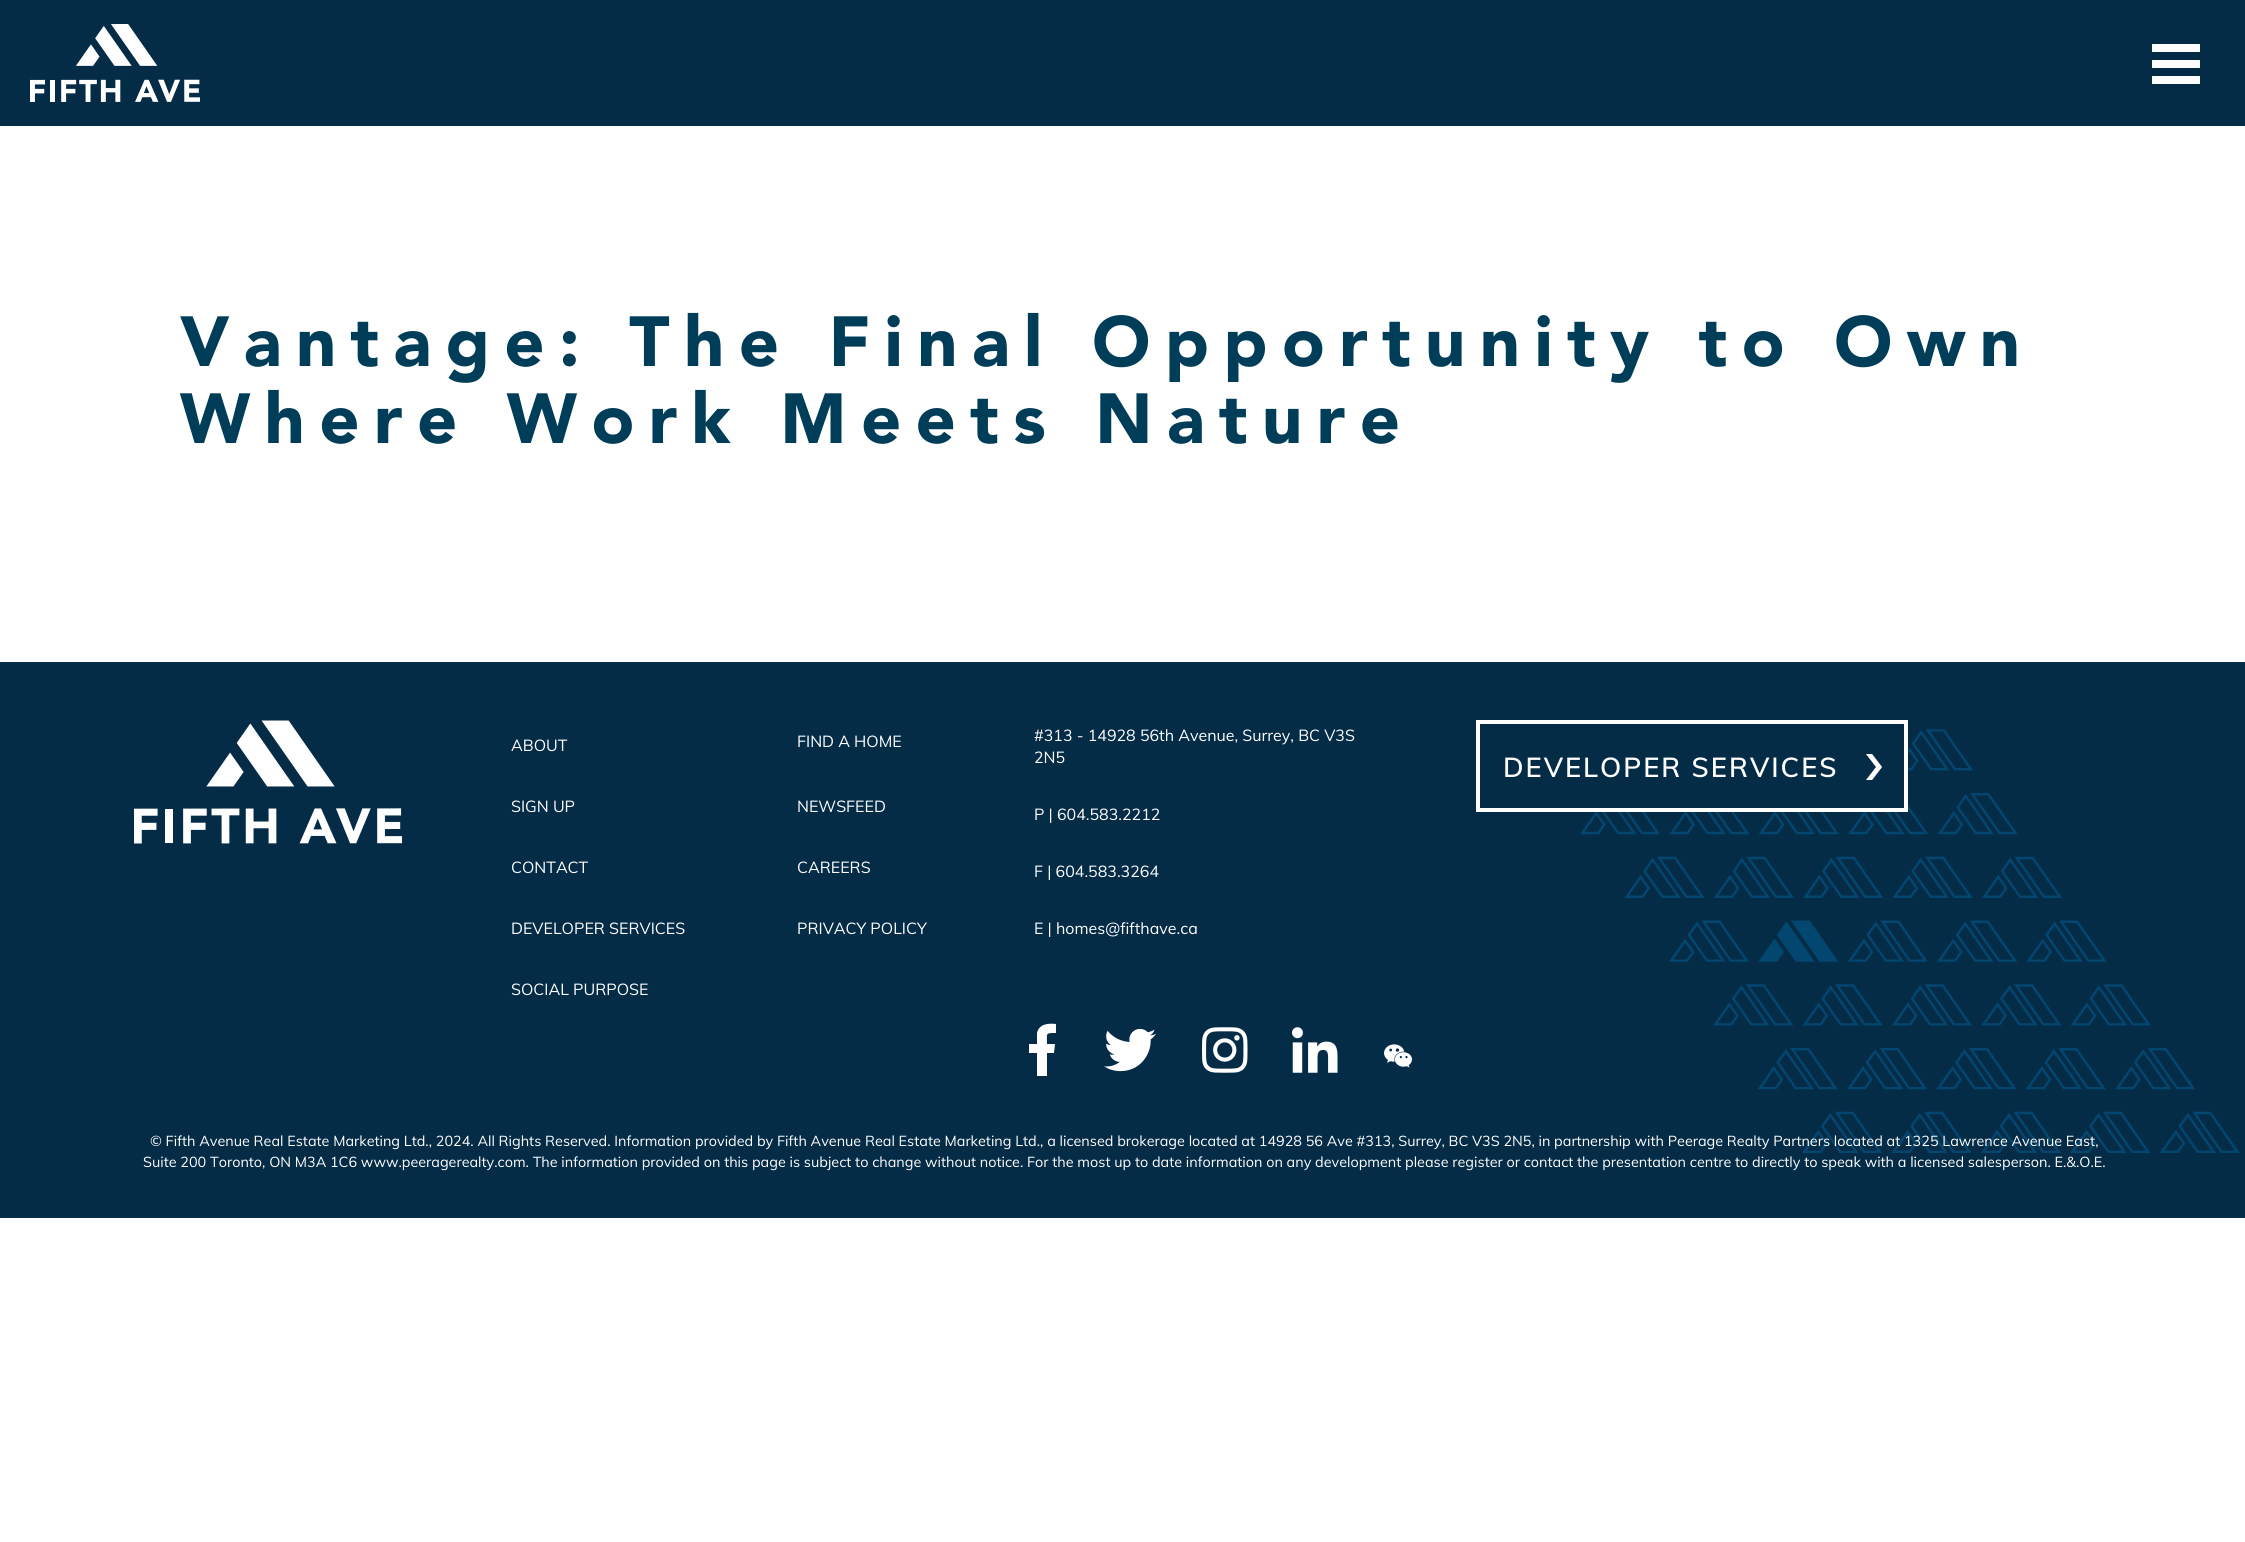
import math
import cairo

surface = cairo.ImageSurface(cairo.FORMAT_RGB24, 2245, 1542)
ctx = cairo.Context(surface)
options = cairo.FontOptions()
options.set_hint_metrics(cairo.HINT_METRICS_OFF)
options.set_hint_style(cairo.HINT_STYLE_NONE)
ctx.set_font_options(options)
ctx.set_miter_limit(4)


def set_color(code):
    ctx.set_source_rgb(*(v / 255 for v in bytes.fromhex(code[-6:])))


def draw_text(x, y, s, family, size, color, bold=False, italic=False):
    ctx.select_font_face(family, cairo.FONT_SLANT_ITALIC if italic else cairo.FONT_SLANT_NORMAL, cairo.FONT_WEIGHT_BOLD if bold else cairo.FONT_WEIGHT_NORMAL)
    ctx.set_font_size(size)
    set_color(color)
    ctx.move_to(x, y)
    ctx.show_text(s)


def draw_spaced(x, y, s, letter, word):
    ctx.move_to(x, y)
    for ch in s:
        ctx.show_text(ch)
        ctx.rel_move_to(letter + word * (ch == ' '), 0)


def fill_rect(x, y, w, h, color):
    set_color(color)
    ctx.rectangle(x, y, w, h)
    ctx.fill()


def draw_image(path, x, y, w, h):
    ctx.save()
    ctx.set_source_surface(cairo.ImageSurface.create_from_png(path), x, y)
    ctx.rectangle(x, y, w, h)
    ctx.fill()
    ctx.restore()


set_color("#ffffff")
ctx.paint()
fill_rect(0, 0, 2245, 126, "#042c47")
draw_image("assets/img1.png", 30, 24, 170, 78)
fill_rect(2152, 60, 48, 8, "#ffffff")
fill_rect(2152, 44, 48, 8, "#ffffff")
fill_rect(2152, 76, 48, 8, "#ffffff")
ctx.select_font_face("Avenir Black")
ctx.set_font_size(70.2)
set_color("#003d58")
draw_spaced(180, 366, "Vantage: The Final Opportunity to Own", 14.4, 0)
draw_spaced(180, 443, "Where Work Meets Nature", 14.4, 0)
fill_rect(0, 662, 2245, 556, "#042c47")
draw_image("assets/img2.png", 134, 720, 268, 124)
draw_text(511, 751, "ABOUT", "Muli", 16, "#ffffff")
draw_text(797, 747, "FIND A HOME", "Muli", 16, "#ffffff")
draw_text(511, 812, "SIGN UP", "Muli", 16, "#ffffff")
draw_text(797, 812, "NEWSFEED", "Muli", 16, "#ffffff")
draw_text(511, 873, "CONTACT", "Muli", 16, "#ffffff")
draw_text(797, 873, "CAREERS", "Muli", 16, "#ffffff")
draw_text(511, 934, "DEVELOPER SERVICES", "Muli", 16, "#ffffff")
draw_text(797, 934, "PRIVACY POLICY", "Muli", 16, "#ffffff")
draw_text(511, 995, "SOCIAL PURPOSE", "Muli", 16, "#ffffff")
draw_text(1034, 741, "#313 - 14928 56th Avenue, Surrey, BC V3S", "Muli", 16, "#ffffff")
draw_text(1034, 763, "2N5", "Muli", 16, "#ffffff")
draw_text(1034, 820, "P | 604.583.2212", "Muli", 16, "#ffffff")
draw_text(1034, 877, "F | 604.583.3264", "Muli", 16, "#ffffff")
draw_text(1034, 934, "E | homes@fifthave.ca", "Muli", 16, "#ffffff")
ctx.new_path()
ctx.move_to(1037, 1076)
ctx.line_to(1037, 1053)
ctx.line_to(1029, 1053)
ctx.line_to(1029, 1044)
ctx.line_to(1037, 1044)
ctx.line_to(1037, 1033)
ctx.curve_to(1039, 1024, 1048, 1023, 1056, 1024)
ctx.line_to(1056, 1033)
ctx.curve_to(1045, 1033, 1047, 1033, 1047, 1044)
ctx.line_to(1055, 1044)
ctx.line_to(1054, 1053)
ctx.line_to(1047, 1053)
ctx.line_to(1047, 1076)
ctx.fill()
draw_image("assets/img3.png", 1104, 1028, 52, 44)
draw_image("assets/img4.png", 1202, 1027, 46, 46)
draw_image("assets/img5.png", 1292, 1027, 46, 46)
draw_image("assets/img6.png", 1384, 1044, 28, 24)
draw_image("assets/img8.png", 1580, 729, 660, 424)
fill_rect(1580, 729, 324, 79, "#042c47")
ctx.rectangle(1478, 722, 428, 88)
set_color("#ffffff")
ctx.set_line_width(4)
ctx.stroke()
ctx.select_font_face("Muli SemiBold")
ctx.set_font_size(27.25)
draw_spaced(1503, 777, "DEVELOPER SERVICES", 2, 0)
draw_image("assets/img7.png", 1866, 754, 16, 26)
draw_text(150, 1146, "© Fifth Avenue Real Estate Marketing Ltd., 2024. All Rights Reserved. Information provided by Fifth Avenue Real Estate Marketing Ltd., a licensed brokerage located at 14928 56 Ave #313, Surrey, BC V3S 2N5, in partnership with Peerage Realty Partners located at 1325 Lawrence Avenue East,", "Muli", 14.4, "#ffffff")
draw_text(143, 1167, "Suite 200 Toronto, ON M3A 1C6 www.peeragerealty.com. The information provided on this page is subject to change without notice. For the most up to date information on any development please register or contact the presentation centre to directly to speak with a licensed salesperson. E.&.O.E.", "Muli", 14.4, "#ffffff")
surface.write_to_png("output.png")
